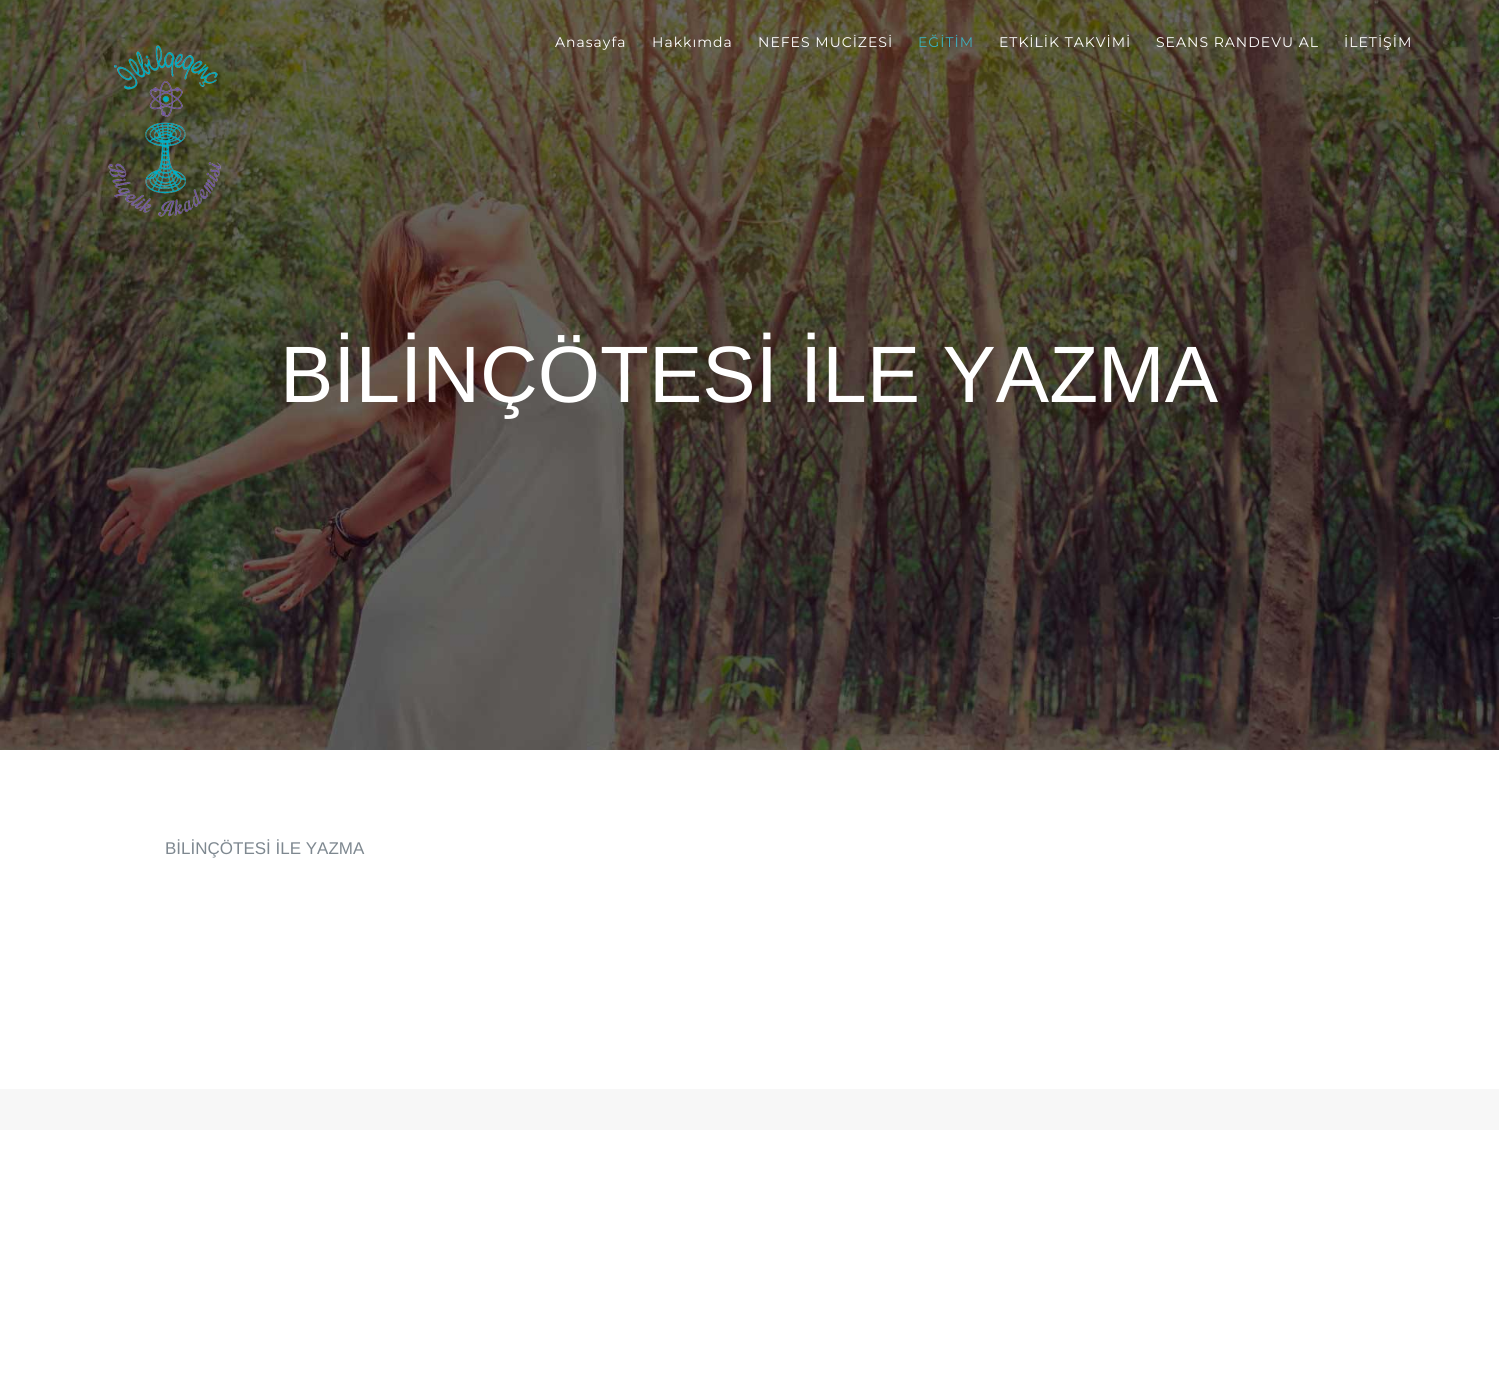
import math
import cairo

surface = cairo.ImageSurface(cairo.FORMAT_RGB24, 1499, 1391)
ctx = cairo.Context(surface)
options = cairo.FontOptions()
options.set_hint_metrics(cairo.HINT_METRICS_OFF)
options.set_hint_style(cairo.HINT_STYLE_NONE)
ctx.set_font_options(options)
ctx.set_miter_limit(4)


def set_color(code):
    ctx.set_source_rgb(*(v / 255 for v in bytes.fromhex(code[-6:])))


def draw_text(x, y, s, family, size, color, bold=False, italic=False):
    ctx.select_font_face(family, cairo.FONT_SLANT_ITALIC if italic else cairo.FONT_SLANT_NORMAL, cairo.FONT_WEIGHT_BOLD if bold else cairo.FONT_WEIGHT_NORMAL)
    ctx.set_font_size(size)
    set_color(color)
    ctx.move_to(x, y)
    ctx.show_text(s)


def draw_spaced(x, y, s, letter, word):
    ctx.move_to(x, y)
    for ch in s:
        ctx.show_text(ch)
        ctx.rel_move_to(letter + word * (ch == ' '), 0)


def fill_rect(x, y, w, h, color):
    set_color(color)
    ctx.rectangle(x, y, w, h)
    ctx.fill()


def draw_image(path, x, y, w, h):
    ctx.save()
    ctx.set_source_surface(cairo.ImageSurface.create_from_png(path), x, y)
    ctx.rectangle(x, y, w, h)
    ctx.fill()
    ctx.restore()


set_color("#ffffff")
ctx.paint()
draw_image("assets/img2.png", 0, 0, 1499, 750)
ctx.select_font_face("Montserrat Thin")
ctx.set_font_size(14)
set_color("#ffffff")
draw_spaced(555, 47, "Anasayfa", 1, 0)
draw_spaced(652, 47, "Hakkımda", 1, 0)
draw_spaced(758, 47, "NEFES MUCİZESİ", 1, 0)
set_color("#3bafbf")
draw_spaced(918, 47, "EĞİTİM", 1, 0)
set_color("#ffffff")
draw_spaced(999, 47, "ETKİLİK TAKVİMİ", 1, 0)
draw_spaced(1156, 47, "SEANS RANDEVU AL", 1, 0)
draw_spaced(1344, 47, "İLETİŞİM", 1, 0)
draw_image("assets/img1.png", 108, 45, 113, 172)
draw_text(280, 402, "BİLİNÇÖTESİ İLE YAZMA", "Liberation Sans", 80, "#ffffff")
draw_text(165, 854, "BİLİNÇÖTESİ İLE YAZMA", "Liberation Sans", 17, "#7e8890")
fill_rect(0, 1089, 1499, 41, "#f7f7f7")
surface.write_to_png("output.png")
